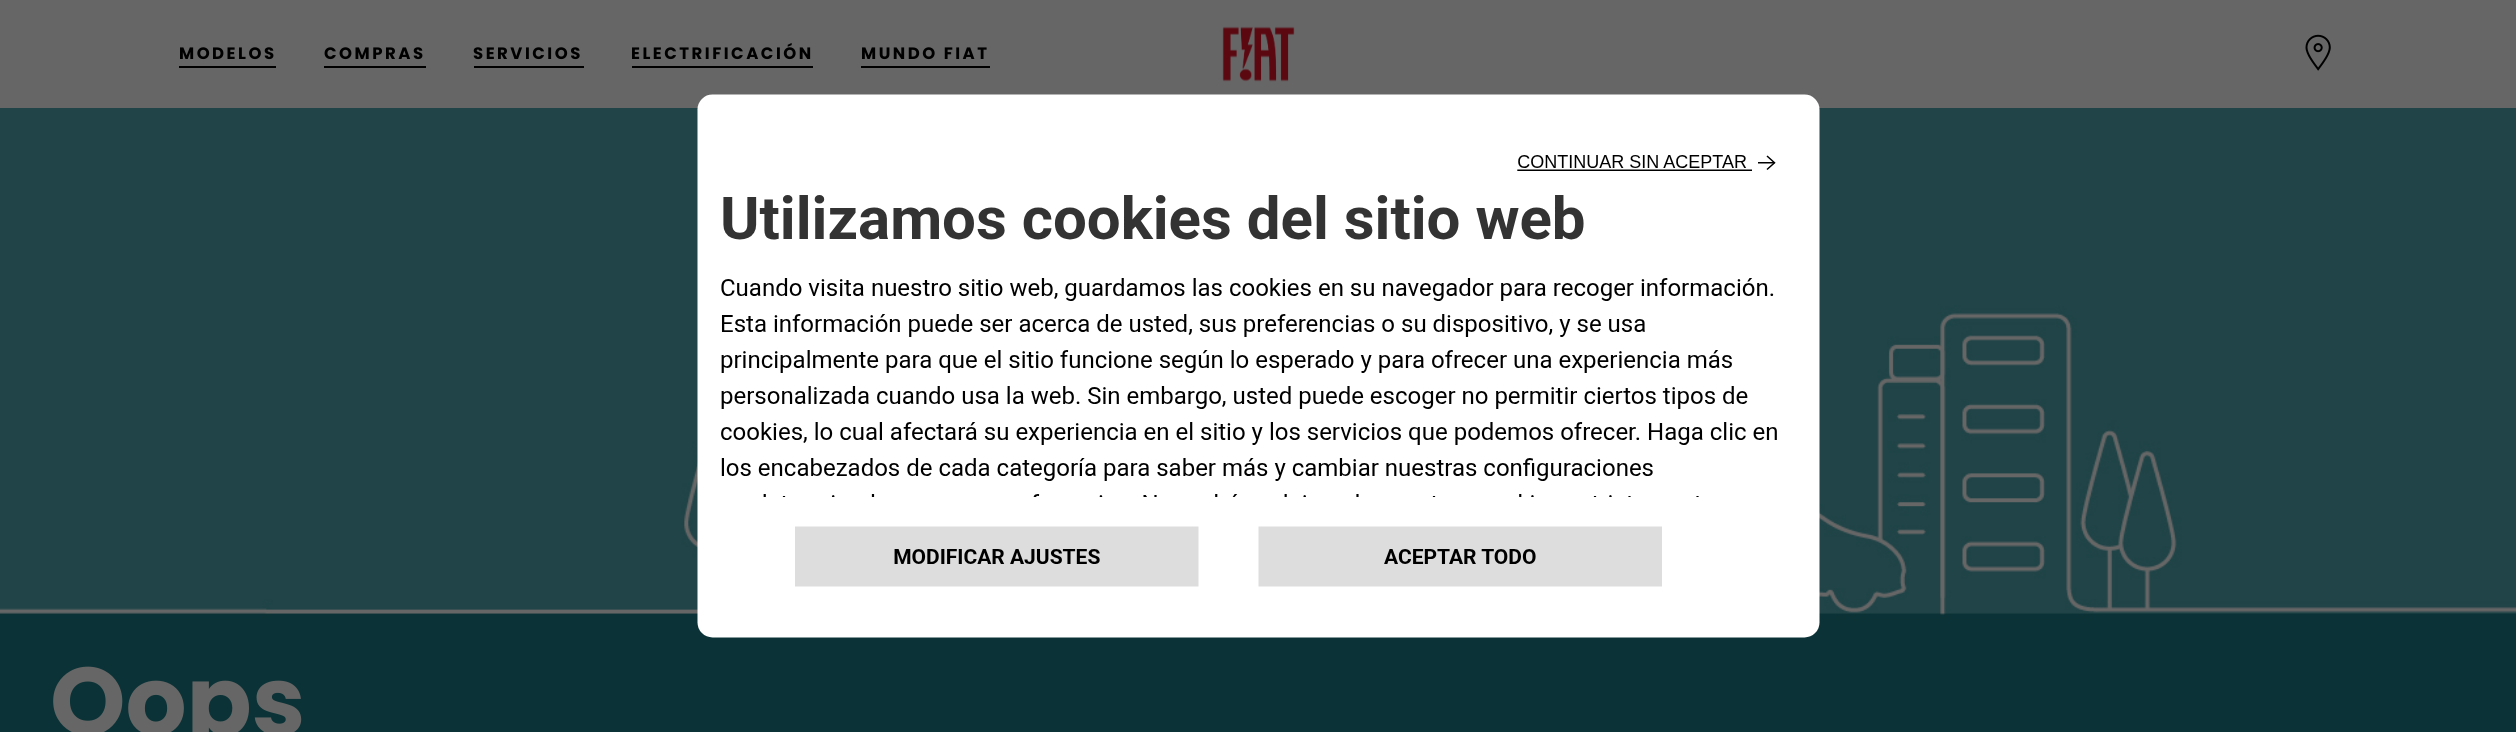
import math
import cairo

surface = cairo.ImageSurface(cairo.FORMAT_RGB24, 2516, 732)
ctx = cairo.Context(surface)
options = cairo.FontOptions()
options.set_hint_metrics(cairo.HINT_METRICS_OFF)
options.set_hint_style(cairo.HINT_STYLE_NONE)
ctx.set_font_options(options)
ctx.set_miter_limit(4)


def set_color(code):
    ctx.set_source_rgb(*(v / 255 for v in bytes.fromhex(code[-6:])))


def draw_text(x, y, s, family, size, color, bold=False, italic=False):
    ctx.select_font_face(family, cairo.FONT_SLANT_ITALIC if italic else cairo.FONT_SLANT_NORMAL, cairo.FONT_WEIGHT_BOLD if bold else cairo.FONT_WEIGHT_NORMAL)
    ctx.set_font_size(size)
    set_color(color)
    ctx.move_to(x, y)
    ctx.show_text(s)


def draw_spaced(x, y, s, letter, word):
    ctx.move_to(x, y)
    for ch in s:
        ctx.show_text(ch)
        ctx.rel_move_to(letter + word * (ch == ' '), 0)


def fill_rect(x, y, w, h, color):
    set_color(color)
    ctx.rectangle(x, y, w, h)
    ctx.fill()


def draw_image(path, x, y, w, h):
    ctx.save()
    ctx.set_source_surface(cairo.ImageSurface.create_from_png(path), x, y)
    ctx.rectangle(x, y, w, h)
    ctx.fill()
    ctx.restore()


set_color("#ffffff")
ctx.paint()
fill_rect(179, 66, 97, 2, "#000000")
ctx.select_font_face("Poppins", cairo.FONT_SLANT_NORMAL, cairo.FONT_WEIGHT_BOLD)
ctx.set_font_size(16.5)
draw_spaced(179, 59, "MODELOS", 2.5, 0)
fill_rect(324, 66, 102, 2, "#000000")
draw_spaced(324, 59, "COMPRAS", 2.5, 0)
fill_rect(474, 66, 110, 2, "#000000")
draw_spaced(473, 59, "SERVICIOS", 2.5, 0)
fill_rect(632, 66, 181, 2, "#000000")
draw_spaced(631, 59, "ELECTRIFICACIÓN", 2.5, 0)
fill_rect(861, 66, 129, 2, "#000000")
draw_spaced(861, 59, "MUNDO FIAT", 2.5, 0)
draw_image("assets/img2.png", 1222, 26, 73, 56)
draw_image("assets/img3.png", 2305, 34, 26, 37)
draw_image("assets/img4.png", 0, 108, 2516, 624)
draw_text(50, 735, "Oops", "Poppins", 96, "#ffffff", bold=True)
draw_image("assets/img1.png", 0, 0, 2516, 732)
surface.write_to_png("output.png")
